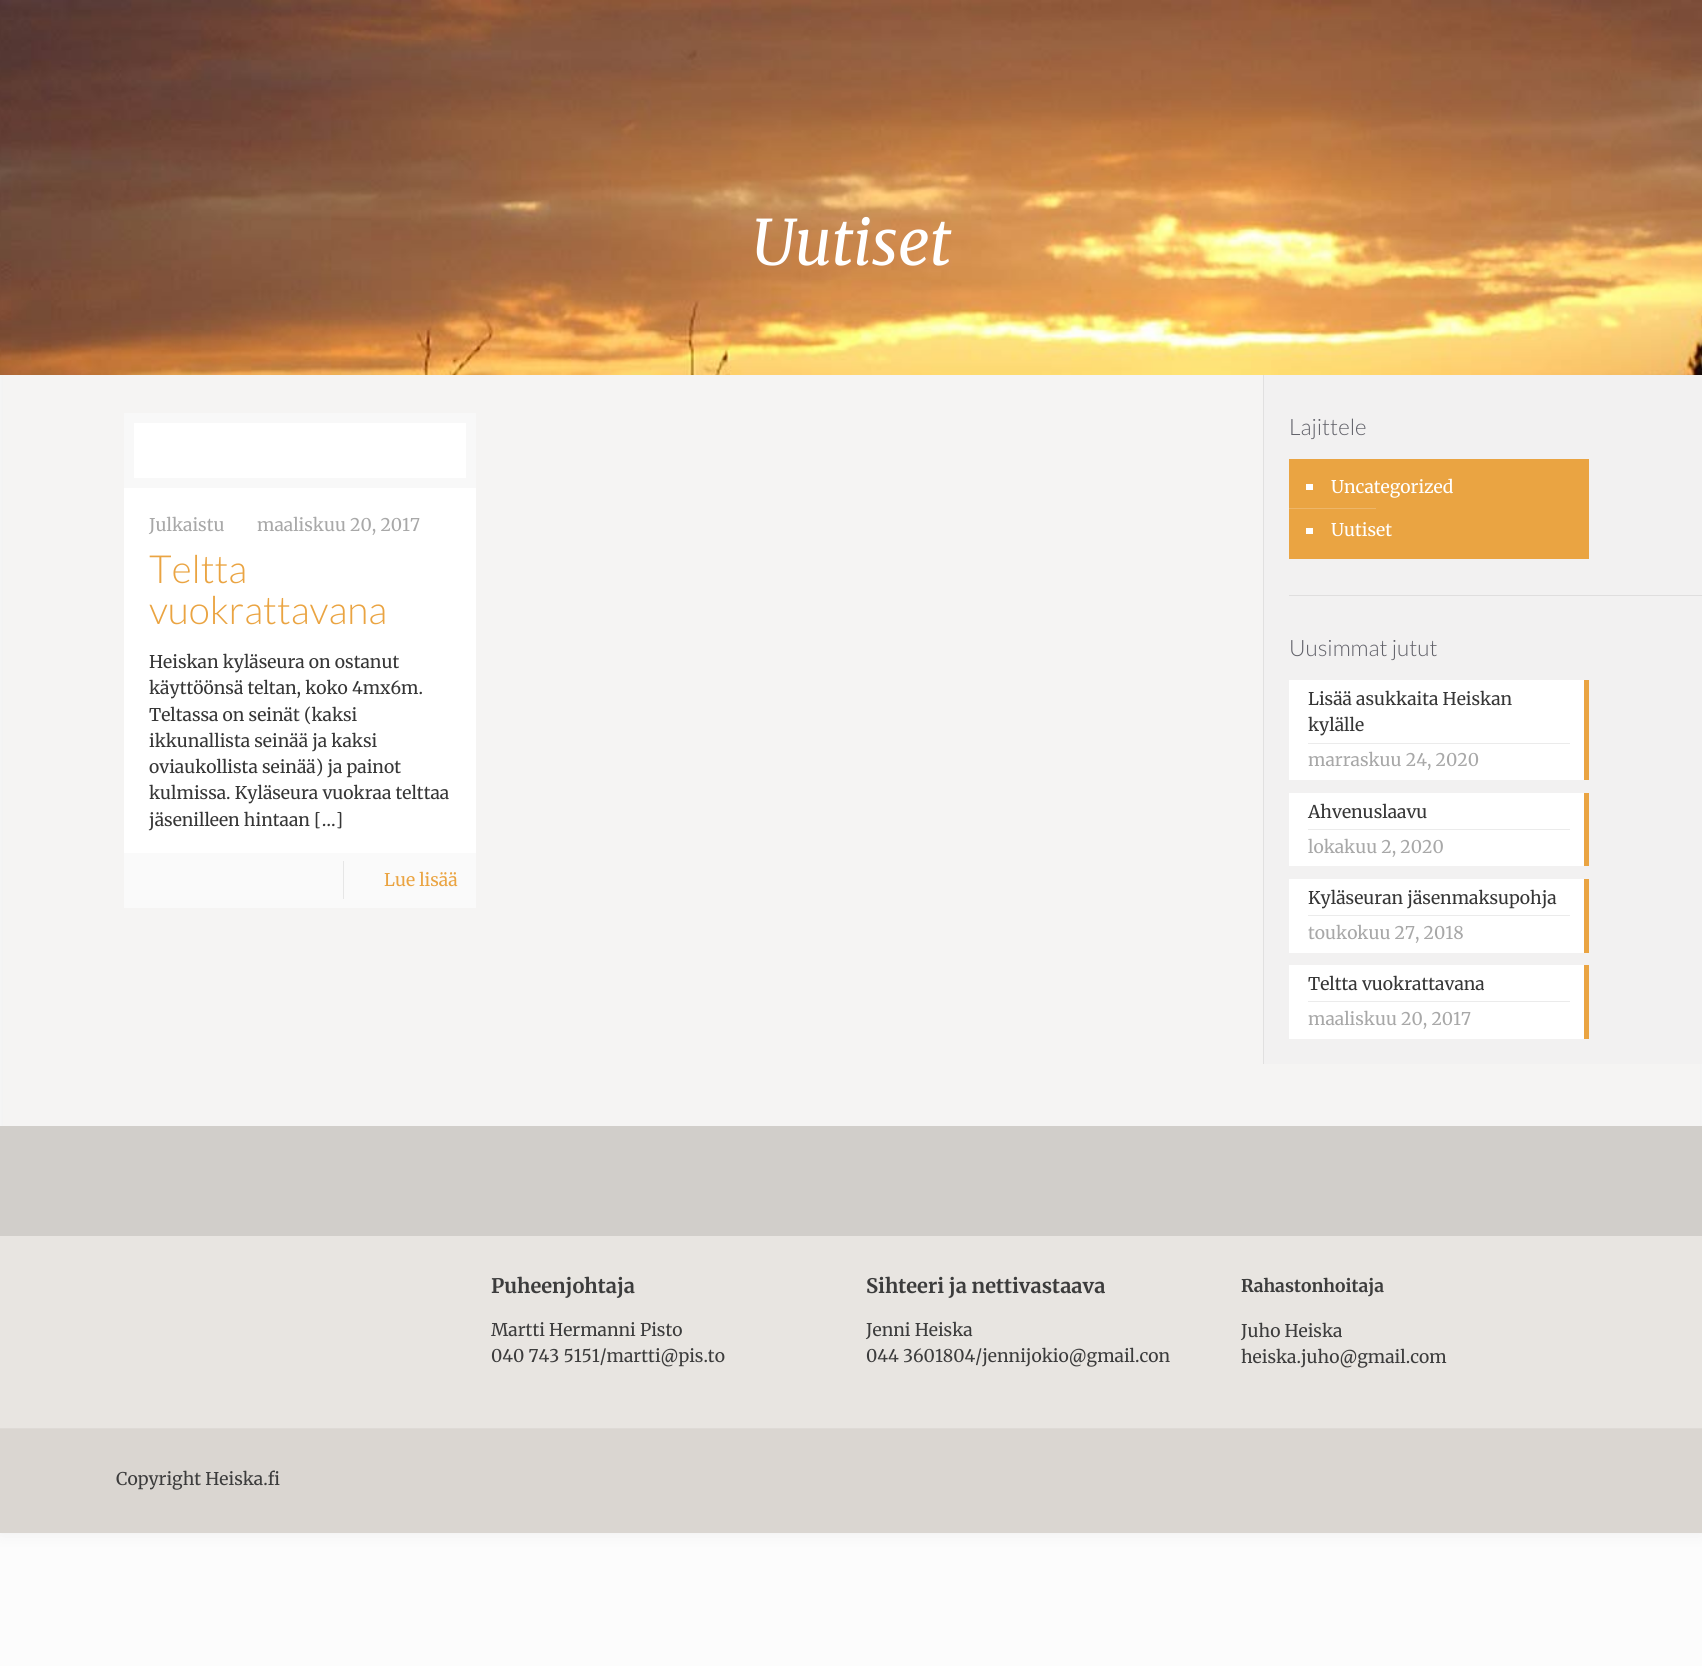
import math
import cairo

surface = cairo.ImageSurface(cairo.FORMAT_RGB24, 1702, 1666)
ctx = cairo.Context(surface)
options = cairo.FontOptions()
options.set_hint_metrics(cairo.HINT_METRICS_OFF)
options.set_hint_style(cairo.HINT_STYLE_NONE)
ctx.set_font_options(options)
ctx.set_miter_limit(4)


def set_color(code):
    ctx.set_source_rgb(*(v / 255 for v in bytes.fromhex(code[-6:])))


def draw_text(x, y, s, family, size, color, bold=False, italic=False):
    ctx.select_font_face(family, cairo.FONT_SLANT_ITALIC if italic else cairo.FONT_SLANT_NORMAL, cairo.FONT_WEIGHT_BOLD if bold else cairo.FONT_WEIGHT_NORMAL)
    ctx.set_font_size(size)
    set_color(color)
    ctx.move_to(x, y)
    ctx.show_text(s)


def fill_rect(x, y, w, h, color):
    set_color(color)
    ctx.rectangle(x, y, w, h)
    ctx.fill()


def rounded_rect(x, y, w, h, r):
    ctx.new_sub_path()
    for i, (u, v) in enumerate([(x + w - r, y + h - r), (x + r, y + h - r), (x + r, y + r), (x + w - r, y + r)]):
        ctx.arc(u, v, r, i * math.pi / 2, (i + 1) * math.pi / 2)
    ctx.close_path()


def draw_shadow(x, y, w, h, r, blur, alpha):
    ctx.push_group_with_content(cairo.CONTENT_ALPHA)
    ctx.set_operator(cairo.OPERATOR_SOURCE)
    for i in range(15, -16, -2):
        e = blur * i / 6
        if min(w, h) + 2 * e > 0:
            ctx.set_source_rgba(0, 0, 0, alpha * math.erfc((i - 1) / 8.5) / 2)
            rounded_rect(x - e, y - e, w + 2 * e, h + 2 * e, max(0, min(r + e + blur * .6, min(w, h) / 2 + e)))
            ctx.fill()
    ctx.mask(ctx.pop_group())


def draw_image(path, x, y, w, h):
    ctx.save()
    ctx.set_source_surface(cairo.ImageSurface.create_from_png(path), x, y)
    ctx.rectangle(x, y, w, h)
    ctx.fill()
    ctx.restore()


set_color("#fcfcfc")
ctx.paint()
set_color("#000000")
draw_shadow(0, 0, 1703, 1533, 0, 9.5, 0.06)
fill_rect(3, 375, 1697, 751, "#f5f4f3")
draw_image("assets/img1.png", 0, 0, 1702, 375)
draw_text(752, 265, "Uutiset", "Merriweather Light", 62.5, "#ffffff", italic=True)
fill_rect(124, 423, 352, 430, "#ffffff")
ctx.rectangle(129, 418, 342, 65)
set_color("#f8f8f8")
ctx.set_line_width(10)
ctx.stroke()
draw_text(149, 531, "Julkaistu", "Merriweather", 17.5, "#a8a8a8")
draw_text(257, 531, "maaliskuu 20, 2017", "Merriweather", 17.5, "#a8a8a8")
draw_text(149, 583, "Teltta", "Lato Light", 38.75, "#eaa442")
draw_text(149, 624, "vuokrattavana", "Lato Light", 38.75, "#eaa442")
draw_text(149, 668, "Heiskan kyläseura on ostanut", "Merriweather", 17.5, "#363636")
draw_text(149, 694, "käyttöönsä teltan, koko 4mx6m.", "Merriweather", 17.5, "#363636")
draw_text(149, 721, "Teltassa on seinät (kaksi", "Merriweather", 17.5, "#363636")
draw_text(149, 747, "ikkunallista seinää ja kaksi", "Merriweather", 17.5, "#363636")
draw_text(149, 773, "oviaukollista seinää) ja painot", "Merriweather", 17.5, "#363636")
draw_text(149, 799, "kulmissa. Kyläseura vuokraa telttaa", "Merriweather", 17.5, "#363636")
draw_text(149, 826, "jäsenilleen hintaan […]", "Merriweather", 17.5, "#363636")
fill_rect(124, 853, 352, 55, "#fafafa")
fill_rect(343, 861, 1, 38, "#e6e6e6")
draw_text(384, 886, "Lue lisää", "Merriweather", 17.5, "#eaa442")
fill_rect(1263, 375, 1, 689, "#e1e0e0")
fill_rect(1264, 375, 438, 689, "#f2f1f1")
draw_text(1289, 435, "Lajittele", "Lato Light", 22.5, "#616169")
fill_rect(1289, 459, 300, 100, "#eaa442")
fill_rect(1306, 484, 7, 6, "#ffffff")
draw_text(1331, 493, "Uncategorized", "Merriweather", 17.5, "#ffffff")
fill_rect(1289, 508, 87, 1, "#eeb668")
fill_rect(1306, 528, 7, 6, "#ffffff")
draw_text(1331, 536, "Uutiset", "Merriweather", 17.5, "#ffffff")
fill_rect(1289, 595, 413, 1, "#dfdede")
draw_text(1289, 656, "Uusimmat jutut", "Lato Light", 22.5, "#616169")
fill_rect(1289, 680, 295, 100, "#ffffff")
fill_rect(1308, 743, 262, 1, "#ebebeb")
draw_text(1308, 705, "Lisää asukkaita Heiskan", "Merriweather", 17.5, "#363636")
draw_text(1308, 731, "kylälle", "Merriweather", 17.5, "#363636")
fill_rect(1584, 680, 5, 100, "#eaa442")
draw_text(1308, 766, "marraskuu 24, 2020", "Merriweather", 17.5, "#a8a8a8")
fill_rect(1289, 793, 295, 73, "#ffffff")
fill_rect(1308, 829, 262, 1, "#ebebeb")
draw_text(1308, 818, "Ahvenuslaavu", "Merriweather", 17.5, "#363636")
fill_rect(1584, 793, 5, 73, "#eaa442")
draw_text(1308, 853, "lokakuu 2, 2020", "Merriweather", 17.5, "#a8a8a8")
fill_rect(1289, 879, 295, 74, "#ffffff")
fill_rect(1308, 915, 262, 1, "#ebebeb")
draw_text(1308, 904, "Kyläseuran jäsenmaksupohja", "Merriweather", 17.5, "#363636")
fill_rect(1584, 879, 5, 74, "#eaa442")
draw_text(1308, 939, "toukokuu 27, 2018", "Merriweather", 17.5, "#a8a8a8")
fill_rect(1289, 965, 295, 74, "#ffffff")
fill_rect(1308, 1001, 262, 1, "#ebebeb")
draw_text(1308, 990, "Teltta vuokrattavana", "Merriweather", 17.5, "#363636")
fill_rect(1584, 965, 5, 74, "#eaa442")
draw_text(1308, 1025, "maaliskuu 20, 2017", "Merriweather", 17.5, "#a8a8a8")
fill_rect(0, 1236, 1702, 192, "#e8e5e1")
fill_rect(0, 1126, 1702, 110, "#d1ceca")
draw_text(491, 1293, "Puheenjohtaja", "Merriweather", 20, "#3c3c3c", bold=True)
draw_text(491, 1336, "Martti Hermanni Pisto", "Merriweather", 17.5, "#3c3c3c")
draw_text(491, 1362, "040 743 5151/martti@pis.to", "Merriweather", 17.5, "#3c3c3c")
draw_text(866, 1293, "Sihteeri ja nettivastaava", "Merriweather", 20, "#3c3c3c", bold=True)
draw_text(866, 1336, "Jenni Heiska", "Merriweather", 17.5, "#3c3c3c")
draw_text(866, 1362, "044 3601804/jennijokio@gmail.con", "Merriweather", 17.5, "#3c3c3c")
draw_text(1241, 1292, "Rahastonhoitaja", "Merriweather", 17.5, "#3c3c3c", bold=True)
draw_text(1241, 1337, "Juho Heiska", "Merriweather", 17.5, "#3c3c3c")
draw_text(1241, 1363, "heiska.juho@gmail.com", "Merriweather", 17.5, "#3c3c3c")
fill_rect(0, 1429, 1702, 104, "#dad6d1")
fill_rect(0, 1428, 1702, 1, "#dedad6")
draw_text(116, 1485, "Copyright Heiska.fi", "Merriweather", 17.5, "#3c3c3c")
surface.write_to_png("output.png")
